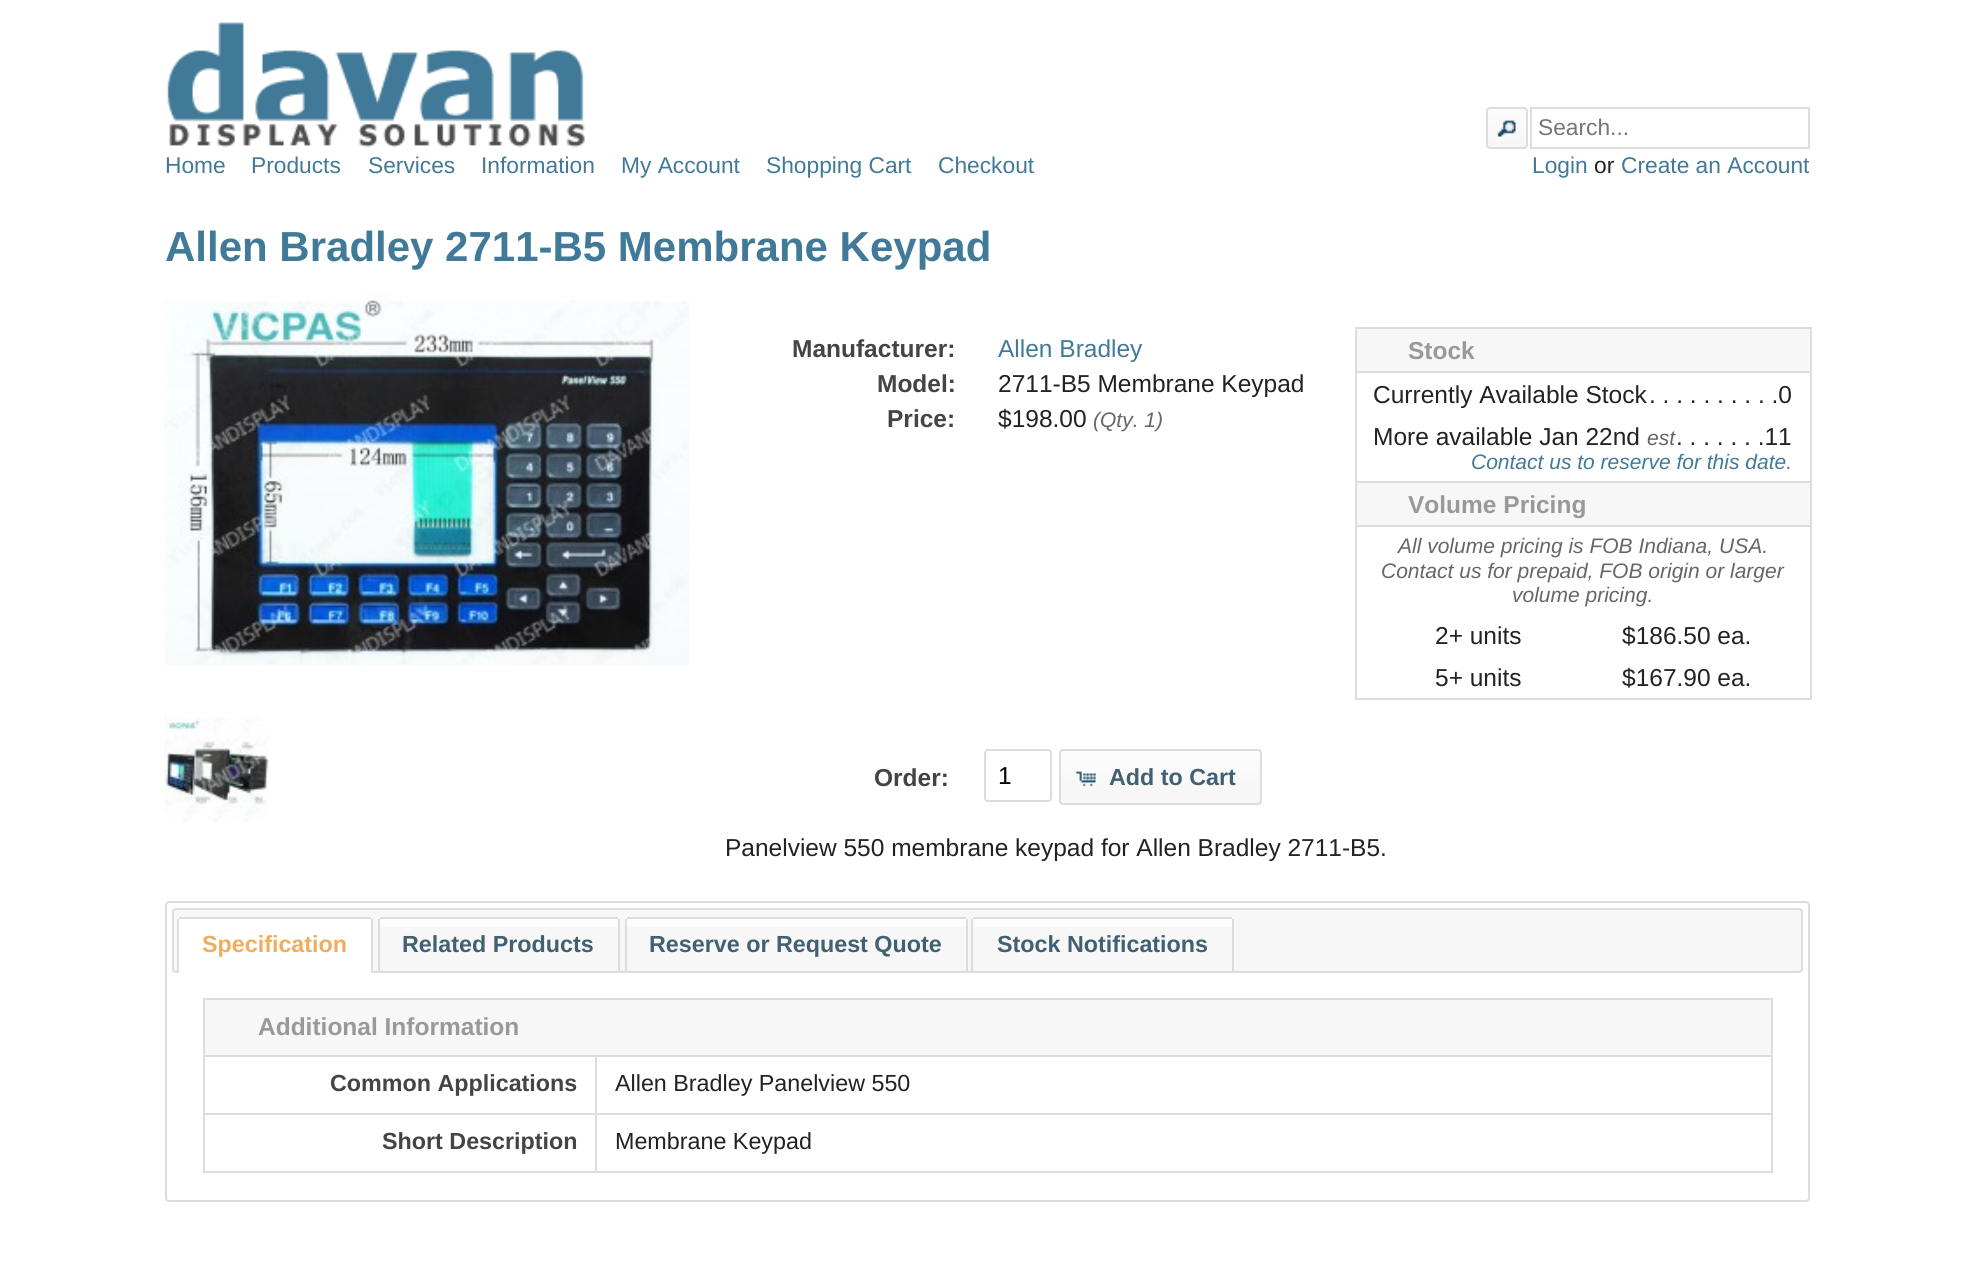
import math
import cairo

surface = cairo.ImageSurface(cairo.FORMAT_RGB24, 1974, 1261)
ctx = cairo.Context(surface)
options = cairo.FontOptions()
options.set_hint_metrics(cairo.HINT_METRICS_OFF)
options.set_hint_style(cairo.HINT_STYLE_NONE)
ctx.set_font_options(options)
ctx.set_miter_limit(4)


def set_color(code):
    ctx.set_source_rgb(*(v / 255 for v in bytes.fromhex(code[-6:])))


def draw_text(x, y, s, family, size, color, bold=False, italic=False):
    ctx.select_font_face(family, cairo.FONT_SLANT_ITALIC if italic else cairo.FONT_SLANT_NORMAL, cairo.FONT_WEIGHT_BOLD if bold else cairo.FONT_WEIGHT_NORMAL)
    ctx.set_font_size(size)
    set_color(color)
    ctx.move_to(x, y)
    ctx.show_text(s)


def fill_rect(x, y, w, h, color):
    set_color(color)
    ctx.rectangle(x, y, w, h)
    ctx.fill()


def rounded_rect(x, y, w, h, r):
    ctx.new_sub_path()
    for i, (u, v) in enumerate([(x + w - r, y + h - r), (x + r, y + h - r), (x + r, y + r), (x + w - r, y + r)]):
        ctx.arc(u, v, r, i * math.pi / 2, (i + 1) * math.pi / 2)
    ctx.close_path()


def draw_image(path, x, y, w, h):
    ctx.save()
    ctx.set_source_surface(cairo.ImageSurface.create_from_png(path), x, y)
    ctx.rectangle(x, y, w, h)
    ctx.fill()
    ctx.restore()


set_color("#ffffff")
ctx.paint()
draw_image("assets/img1.png", 167, 22, 418, 126)
draw_image("assets/img2.png", 1486, 107, 41, 41)
rounded_rect(1487, 108, 40, 40, 3)
set_color("#dddddd")
ctx.stroke()
draw_image("assets/img3.png", 1497, 120, 19, 17)
ctx.rectangle(1531, 108, 278, 40)
ctx.stroke()
draw_text(1538, 135, "Search...", "Liberation Sans", 22.75, "#757575")
draw_text(165, 173, "Home", "Liberation Sans", 22.75, "#417a98")
draw_text(251, 173, "Products", "Liberation Sans", 22.75, "#417a98")
draw_text(368, 173, "Services", "Liberation Sans", 22.75, "#417a98")
draw_text(481, 173, "Information", "Liberation Sans", 22.75, "#417a98")
draw_text(621, 173, "My Account", "Liberation Sans", 22.75, "#417a98")
draw_text(766, 173, "Shopping Cart", "Liberation Sans", 22.75, "#417a98")
draw_text(938, 173, "Checkout", "Liberation Sans", 22.75, "#417a98")
draw_text(1532, 173, "Login", "Liberation Sans", 22.75, "#417a98")
draw_text(1594, 173, "or", "Liberation Sans", 22.75, "#222222")
draw_text(1621, 173, "Create an Account", "Liberation Sans", 22.75, "#417a98")
draw_text(165, 261, "Allen Bradley 2711-B5 Membrane Keypad", "Liberation Sans", 42, "#417a98", bold=True)
draw_image("assets/img4.png", 164, 291, 526, 375)
draw_image("assets/img5.png", 164, 717, 105, 106)
draw_text(792, 357, "Manufacturer:", "Liberation Sans", 24.5, "#444444", bold=True)
draw_text(998, 357, "Allen Bradley", "Liberation Sans", 24.5, "#417a98")
draw_text(877, 392, "Model:", "Liberation Sans", 24.5, "#444444", bold=True)
draw_text(998, 392, "2711-B5 Membrane Keypad", "Liberation Sans", 24.5, "#222222")
draw_text(887, 427, "Price:", "Liberation Sans", 24.5, "#444444", bold=True)
draw_text(998, 427, "$198.00", "Liberation Sans", 24.5, "#222222")
draw_text(1093, 427, "(Qty. 1)", "Liberation Sans", 21, "#666666", italic=True)
fill_rect(1357, 329, 453, 42, "#f7f7f7")
fill_rect(1355, 327, 456, 2, "#dddddd")
fill_rect(1355, 371, 456, 2, "#dddddd")
fill_rect(1355, 481, 456, 2, "#dddddd")
fill_rect(1355, 525, 456, 2, "#dddddd")
fill_rect(1810, 525, 2, 175, "#dddddd")
fill_rect(1810, 481, 2, 46, "#dddddd")
fill_rect(1810, 371, 2, 112, "#dddddd")
fill_rect(1810, 327, 2, 46, "#dddddd")
fill_rect(1355, 698, 456, 2, "#dddddd")
fill_rect(1355, 525, 2, 175, "#dddddd")
fill_rect(1355, 481, 2, 46, "#dddddd")
fill_rect(1355, 371, 2, 112, "#dddddd")
fill_rect(1355, 327, 2, 46, "#dddddd")
draw_text(1408, 359, "Stock", "Liberation Sans", 24.5, "#999999", bold=True)
draw_text(1373, 403, "Currently Available Stock", "Liberation Sans", 24.5, "#222222")
draw_text(1649, 403, ". . . . . . . . . .0", "Liberation Sans", 24.5, "#222222")
draw_text(1373, 445, "More available Jan 22nd", "Liberation Sans", 24.5, "#222222")
draw_text(1647, 445, "est", "Liberation Sans", 21, "#666666", italic=True)
draw_text(1676, 445, ". . . . . . .11", "Liberation Sans", 24.5, "#222222")
draw_text(1471, 469, "Contact us to reserve for this date.", "Liberation Sans", 21, "#417a98", italic=True)
fill_rect(1357, 483, 453, 42, "#f7f7f7")
draw_text(1408, 513, "Volume Pricing", "Liberation Sans", 24.5, "#999999", bold=True)
draw_text(1398, 553, "All volume pricing is FOB Indiana, USA.", "Liberation Sans", 21, "#666666", italic=True)
draw_text(1381, 578, "Contact us for prepaid, FOB origin or larger", "Liberation Sans", 21, "#666666", italic=True)
draw_text(1512, 602, "volume pricing.", "Liberation Sans", 21, "#666666", italic=True)
draw_text(1435, 644, "2+ units", "Liberation Sans", 24.5, "#222222")
draw_text(1622, 644, "$186.50 ea.", "Liberation Sans", 24.5, "#222222")
draw_text(1435, 686, "5+ units", "Liberation Sans", 24.5, "#222222")
draw_text(1622, 686, "$167.90 ea.", "Liberation Sans", 24.5, "#222222")
draw_text(874, 786, "Order:", "Liberation Sans", 24.5, "#444444", bold=True)
rounded_rect(985, 750, 66, 51, 3)
set_color("#dddddd")
ctx.stroke()
draw_text(998, 784, "1", "Liberation Sans", 24.5, "#000000")
draw_image("assets/img6.png", 1059, 749, 202, 56)
rounded_rect(1060, 750, 201, 54, 3)
set_color("#dddddd")
ctx.stroke()
draw_image("assets/img7.png", 1075, 771, 21, 16)
draw_text(1109, 785, "Add to Cart", "Liberation Sans", 23.3, "#416172", bold=True)
draw_text(725, 856, "Panelview 550 membrane keypad for Allen Bradley 2711-B5.", "Liberation Sans", 24.5, "#222222")
rounded_rect(166, 902, 1643, 299, 3)
set_color("#dddddd")
ctx.stroke()
set_color("#f7f7f7")
rounded_rect(172, 908, 1631, 65, 4)
ctx.fill()
draw_image("assets/img8.png", 172, 909, 2, 64)
rounded_rect(173, 909, 1629, 63, 3)
set_color("#dddddd")
ctx.stroke()
set_color("#ffffff")
ctx.new_path()
ctx.move_to(181, 917)
ctx.line_to(369, 917)
ctx.curve_to(371, 917, 373, 919, 373, 921)
ctx.line_to(373, 973)
ctx.line_to(177, 973)
ctx.line_to(177, 921)
ctx.curve_to(177, 919, 179, 917, 181, 917)
ctx.close_path()
ctx.fill()
draw_image("assets/img9.png", 177, 917, 2, 2)
fill_rect(179, 917, 192, 2, "#dddddd")
fill_rect(371, 919, 2, 54, "#dddddd")
fill_rect(177, 919, 2, 54, "#dddddd")
draw_text(202, 952, "Specification", "Liberation Sans", 23.3, "#efad5f", bold=True)
fill_rect(378, 917, 241, 10, "#fcfcfc")
fill_rect(380, 917, 238, 2, "#dddddd")
fill_rect(618, 919, 2, 52, "#dddddd")
fill_rect(378, 919, 2, 52, "#dddddd")
draw_text(402, 952, "Related Products", "Liberation Sans", 23.3, "#416172", bold=True)
fill_rect(625, 917, 342, 10, "#fcfcfc")
fill_rect(627, 917, 339, 2, "#dddddd")
fill_rect(966, 919, 2, 52, "#dddddd")
fill_rect(625, 919, 2, 52, "#dddddd")
draw_text(649, 952, "Reserve or Request Quote", "Liberation Sans", 23.3, "#416172", bold=True)
fill_rect(972, 917, 261, 10, "#fcfcfc")
fill_rect(973, 917, 259, 2, "#dddddd")
fill_rect(1232, 919, 2, 52, "#dddddd")
fill_rect(971, 919, 2, 52, "#dddddd")
draw_text(997, 952, "Stock Notifications", "Liberation Sans", 23.3, "#416172", bold=True)
fill_rect(205, 1000, 1566, 55, "#f7f7f7")
fill_rect(203, 998, 1570, 2, "#dddddd")
fill_rect(595, 1055, 1178, 2, "#dddddd")
fill_rect(595, 1113, 1178, 2, "#dddddd")
fill_rect(1771, 1113, 2, 60, "#dddddd")
fill_rect(1771, 1055, 2, 60, "#dddddd")
fill_rect(1771, 998, 2, 59, "#dddddd")
fill_rect(595, 1171, 1178, 2, "#dddddd")
fill_rect(595, 1113, 2, 60, "#dddddd")
fill_rect(203, 1113, 394, 2, "#dddddd")
fill_rect(595, 1055, 2, 60, "#dddddd")
fill_rect(203, 1055, 394, 2, "#dddddd")
fill_rect(203, 1171, 394, 2, "#dddddd")
fill_rect(203, 1113, 2, 60, "#dddddd")
fill_rect(203, 1055, 2, 60, "#dddddd")
fill_rect(203, 998, 2, 59, "#dddddd")
draw_text(258, 1035, "Additional Information", "Liberation Sans", 24.5, "#999999", bold=True)
draw_text(330, 1091, "Common Applications", "Liberation Sans", 23.3, "#444444", bold=True)
draw_text(615, 1091, "Allen Bradley Panelview 550", "Liberation Sans", 23.3, "#222222")
draw_text(382, 1149, "Short Description", "Liberation Sans", 23.3, "#444444", bold=True)
draw_text(615, 1149, "Membrane Keypad", "Liberation Sans", 23.3, "#222222")
surface.write_to_png("output.png")
